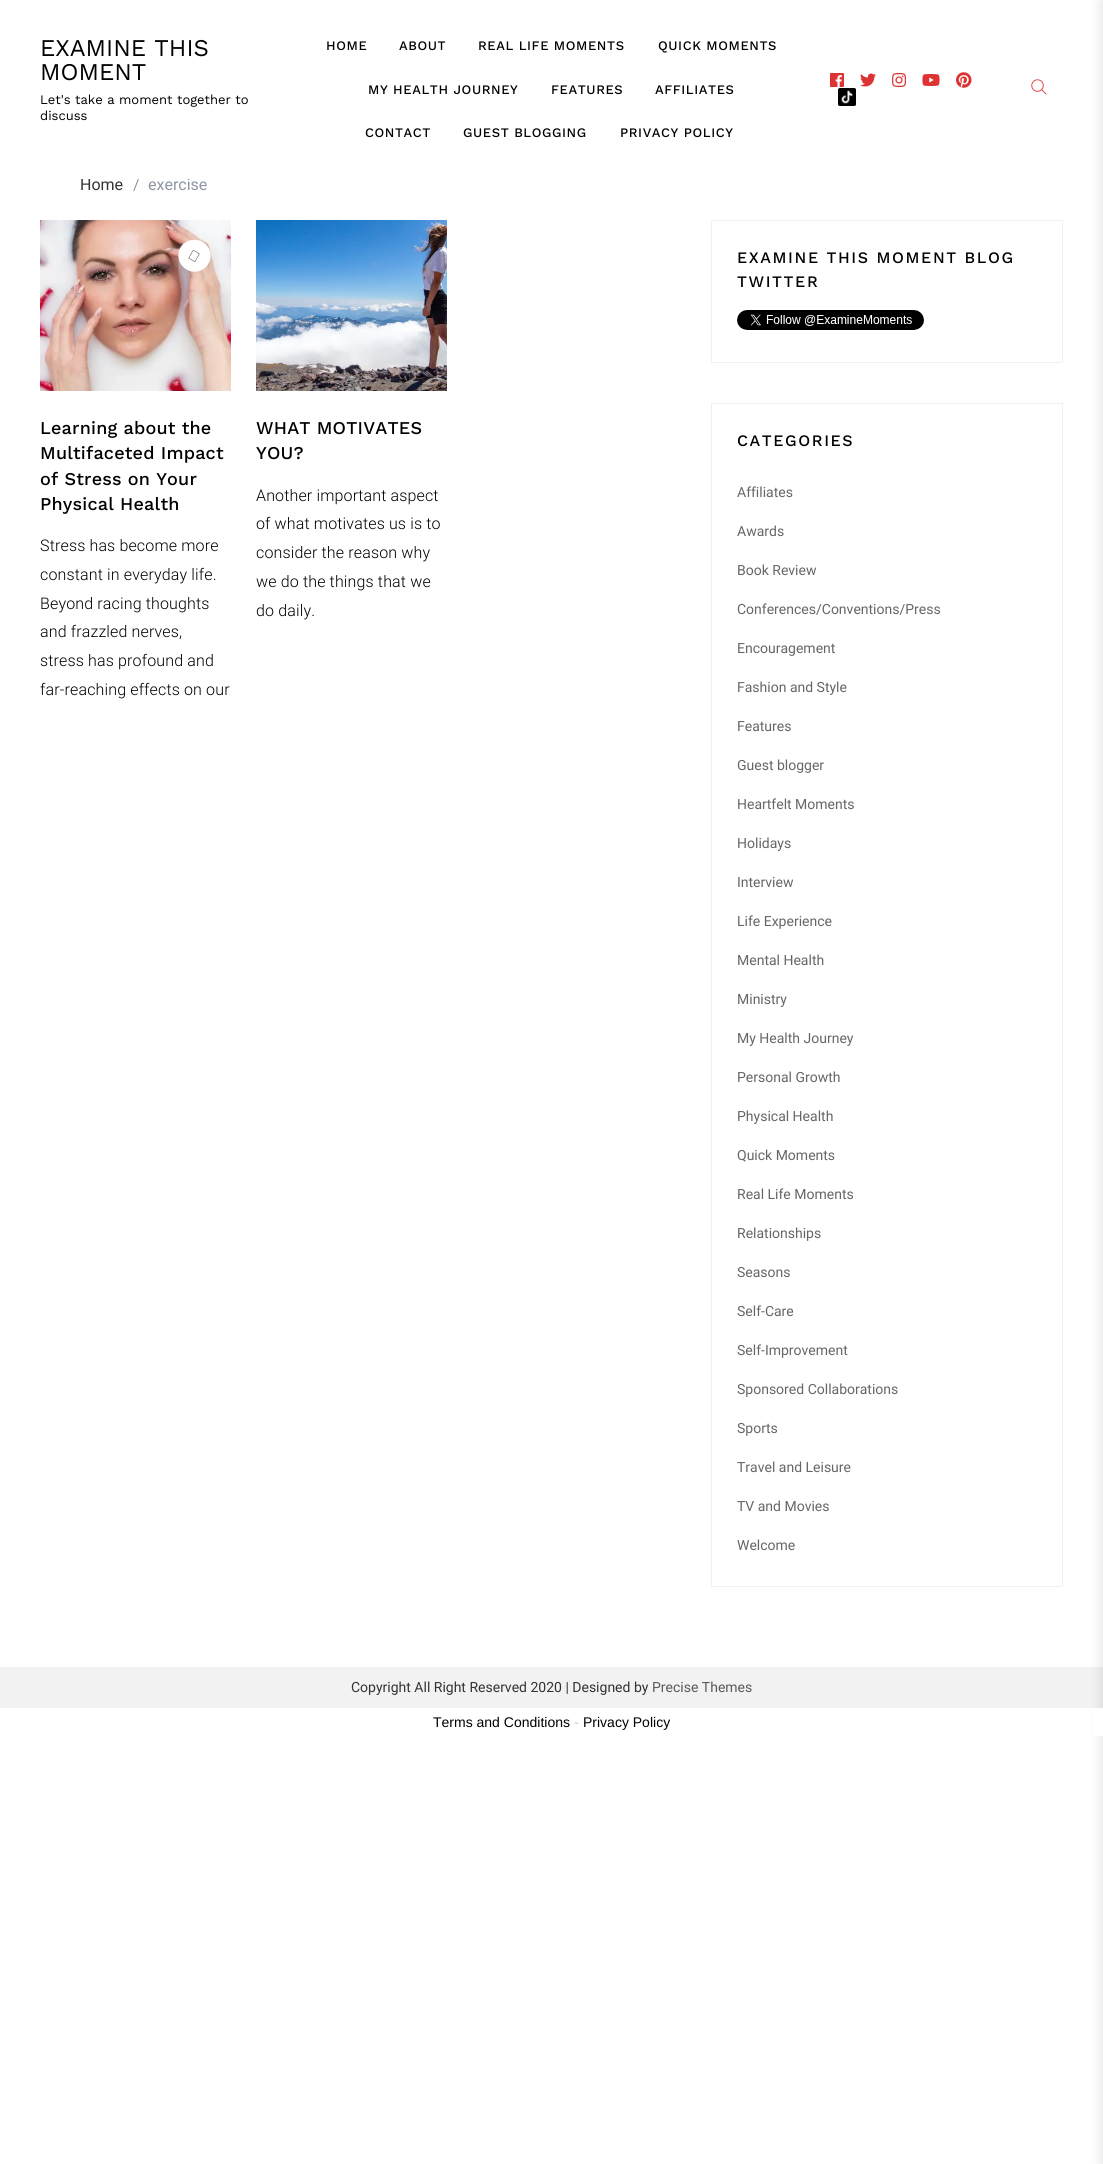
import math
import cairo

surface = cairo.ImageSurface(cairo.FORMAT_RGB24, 1103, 2164)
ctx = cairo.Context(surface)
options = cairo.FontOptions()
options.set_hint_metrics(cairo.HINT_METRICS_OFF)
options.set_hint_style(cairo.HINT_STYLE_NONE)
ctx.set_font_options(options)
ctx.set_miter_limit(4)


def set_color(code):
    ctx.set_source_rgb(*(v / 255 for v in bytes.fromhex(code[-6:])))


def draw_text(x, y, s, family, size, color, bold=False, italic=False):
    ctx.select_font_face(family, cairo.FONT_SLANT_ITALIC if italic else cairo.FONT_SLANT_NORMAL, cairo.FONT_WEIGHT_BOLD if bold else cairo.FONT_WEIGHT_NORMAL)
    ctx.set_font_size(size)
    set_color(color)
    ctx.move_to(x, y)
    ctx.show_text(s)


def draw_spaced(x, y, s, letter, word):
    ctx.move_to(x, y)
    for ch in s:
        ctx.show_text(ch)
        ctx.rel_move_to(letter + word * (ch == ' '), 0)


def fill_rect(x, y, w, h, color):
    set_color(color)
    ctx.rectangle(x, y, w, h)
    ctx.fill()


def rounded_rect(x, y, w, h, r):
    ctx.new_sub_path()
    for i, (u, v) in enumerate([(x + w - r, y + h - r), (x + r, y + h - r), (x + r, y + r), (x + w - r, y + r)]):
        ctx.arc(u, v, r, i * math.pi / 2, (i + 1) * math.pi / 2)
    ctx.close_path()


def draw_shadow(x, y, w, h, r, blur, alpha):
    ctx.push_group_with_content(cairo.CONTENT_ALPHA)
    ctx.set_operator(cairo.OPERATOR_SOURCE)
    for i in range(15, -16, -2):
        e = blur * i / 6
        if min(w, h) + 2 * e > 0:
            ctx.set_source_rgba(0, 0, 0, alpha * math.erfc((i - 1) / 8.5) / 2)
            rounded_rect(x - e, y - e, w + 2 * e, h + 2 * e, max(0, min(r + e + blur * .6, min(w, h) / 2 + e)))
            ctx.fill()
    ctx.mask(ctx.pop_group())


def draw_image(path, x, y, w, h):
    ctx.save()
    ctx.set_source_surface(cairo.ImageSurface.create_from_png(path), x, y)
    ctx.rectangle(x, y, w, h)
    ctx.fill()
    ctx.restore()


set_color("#ffffff")
ctx.paint()
draw_text(80, 190, "Home", "Roboto", 16, "#333333")
draw_text(133, 190, "/", "Roboto", 16, "#8d97a1")
draw_text(148, 190, "exercise", "Roboto", 16, "#8d97a1")
fill_rect(81, 178, 109, 1, "#ffffff")
draw_text(40, 56, "EXAMINE THIS", "Work Sans", 24, "#000000")
draw_text(40, 80, "MOMENT", "Work Sans", 24, "#000000")
draw_text(40, 104, "Let's take a moment together to", "Work Sans", 13, "#000000")
draw_text(40, 120, "discuss", "Work Sans", 13, "#000000")
ctx.select_font_face("Work Sans Medium")
draw_spaced(326, 50, "HOME", 0.6, 0)
draw_spaced(399, 50, "ABOUT", 0.6, 0)
draw_spaced(478, 50, "REAL LIFE MOMENTS", 0.6, 0)
draw_spaced(658, 50, "QUICK MOMENTS", 0.6, 0)
draw_spaced(368, 94, "MY HEALTH JOURNEY", 0.6, 0)
draw_spaced(551, 94, "FEATURES", 0.6, 0)
draw_spaced(655, 94, "AFFILIATES", 0.6, 0)
draw_spaced(365, 137, "CONTACT", 0.6, 0)
draw_spaced(463, 137, "GUEST BLOGGING", 0.6, 0)
draw_spaced(620, 137, "PRIVACY POLICY", 0.6, 0)
draw_image("assets/img1.png", 830, 73, 14, 14)
draw_image("assets/img2.png", 860, 73, 16, 14)
draw_image("assets/img3.png", 892, 73, 15, 14)
draw_image("assets/img4.png", 922, 74, 18, 12)
draw_image("assets/img5.png", 956, 72, 16, 16)
draw_image("assets/img6.png", 838, 88, 18, 18)
draw_image("assets/img7.png", 1031, 79, 16, 16)
draw_image("assets/img8.png", 40, 220, 191, 171)
set_color("#000000")
draw_shadow(179, 240, 32, 32, 16, 6, 0.05)
set_color("#ffffff")
ctx.new_path()
ctx.move_to(202.5, 242)
ctx.curve_to(210, 246, 213, 256, 208.5, 263.5)
ctx.curve_to(204, 271.5, 194, 274, 186.5, 269.5)
ctx.curve_to(179, 265, 176, 255.5, 180.5, 247.5)
ctx.curve_to(185, 240, 195, 237.5, 202.5, 242)
ctx.close_path()
ctx.fill()
draw_image("assets/img9.png", 188, 250, 12, 12)
ctx.set_font_size(18)
set_color("#000000")
draw_spaced(40, 434, "Learning about the", 0.2, 0)
draw_spaced(40, 459, "Multifaceted Impact", 0.2, 0)
draw_spaced(40, 485, "of Stress on Your", 0.2, 0)
draw_spaced(40, 510, "Physical Health", 0.2, 0)
ctx.select_font_face("Roboto Light")
ctx.set_font_size(16)
draw_spaced(40, 551, "Stress has become more", 0.15, 0)
draw_spaced(40, 580, "constant in everyday life.", 0.15, 0)
draw_spaced(40, 609, "Beyond racing thoughts", 0.15, 0)
draw_spaced(40, 637, "and frazzled nerves,", 0.15, 0)
draw_spaced(40, 666, "stress has profound and", 0.15, 0)
draw_spaced(40, 695, "far-reaching effects on our", 0.15, 0)
draw_image("assets/img10.png", 256, 220, 191, 171)
ctx.select_font_face("Work Sans Medium")
ctx.set_font_size(18)
draw_spaced(256, 434, "WHAT MOTIVATES", 0.2, 0)
draw_spaced(256, 459, "YOU?", 0.2, 0)
ctx.select_font_face("Roboto Light")
ctx.set_font_size(16)
draw_spaced(256, 501, "Another important aspect", 0.15, 0)
draw_spaced(256, 529, "of what motivates us is to", 0.15, 0)
draw_spaced(256, 558, "consider the reason why", 0.15, 0)
draw_spaced(256, 587, "we do the things that we", 0.15, 0)
draw_spaced(256, 616, "do daily.", 0.15, 0)
ctx.rectangle(711.5, 220.5, 351, 142)
set_color("#f0f0f0")
ctx.set_line_width(1)
ctx.stroke()
ctx.select_font_face("Work Sans Medium")
set_color("#000000")
draw_spaced(737, 263, "EXAMINE THIS MOMENT BLOG", 1.6, 0)
draw_spaced(737, 287, "TWITTER", 1.6, 0)
draw_image("assets/img11.png", 737, 310, 187, 20)
ctx.rectangle(711.5, 403.5, 351, 1183)
set_color("#f0f0f0")
ctx.stroke()
set_color("#000000")
draw_spaced(737, 446, "CATEGORIES", 1.6, 0)
draw_text(737, 497, "Affiliates", "Roboto", 14, "#666666")
draw_text(737, 536, "Awards", "Roboto", 14, "#666666")
draw_text(737, 575, "Book Review", "Roboto", 14, "#666666")
draw_text(737, 614, "Conferences/Conventions/Press", "Roboto", 14, "#666666")
draw_text(737, 653, "Encouragement", "Roboto", 14, "#666666")
draw_text(737, 692, "Fashion and Style", "Roboto", 14, "#666666")
draw_text(737, 731, "Features", "Roboto", 14, "#666666")
draw_text(737, 770, "Guest blogger", "Roboto", 14, "#666666")
draw_text(737, 809, "Heartfelt Moments", "Roboto", 14, "#666666")
draw_text(737, 848, "Holidays", "Roboto", 14, "#666666")
draw_text(737, 887, "Interview", "Roboto", 14, "#666666")
draw_text(737, 926, "Life Experience", "Roboto", 14, "#666666")
draw_text(737, 965, "Mental Health", "Roboto", 14, "#666666")
draw_text(737, 1004, "Ministry", "Roboto", 14, "#666666")
draw_text(737, 1043, "My Health Journey", "Roboto", 14, "#666666")
draw_text(737, 1082, "Personal Growth", "Roboto", 14, "#666666")
draw_text(737, 1121, "Physical Health", "Roboto", 14, "#666666")
draw_text(737, 1160, "Quick Moments", "Roboto", 14, "#666666")
draw_text(737, 1199, "Real Life Moments", "Roboto", 14, "#666666")
draw_text(737, 1238, "Relationships", "Roboto", 14, "#666666")
draw_text(737, 1277, "Seasons", "Roboto", 14, "#666666")
draw_text(737, 1316, "Self-Care", "Roboto", 14, "#666666")
draw_text(737, 1355, "Self-Improvement", "Roboto", 14, "#666666")
draw_text(737, 1394, "Sponsored Collaborations", "Roboto", 14, "#666666")
draw_text(737, 1433, "Sports", "Roboto", 14, "#666666")
draw_text(737, 1472, "Travel and Leisure", "Roboto", 14, "#666666")
draw_text(737, 1511, "TV and Movies", "Roboto", 14, "#666666")
draw_text(737, 1550, "Welcome", "Roboto", 14, "#666666")
fill_rect(0, 1667, 1103, 41, "#f2f2f2")
draw_text(351, 1692, "Copyright All Right Reserved 2020 | Designed by", "Roboto", 14, "#333333")
draw_text(652, 1692, "Precise Themes", "Roboto", 14, "#595959")
set_color("#000000")
draw_shadow(1101, 0, 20, 2164, 0, 6, 0.11)
fill_rect(1093, 1708, 10, 28, "#ffffff")
draw_text(433, 1727, "Terms and Conditions", "Liberation Sans", 14, "#000000")
draw_text(574, 1727, "-", "Liberation Sans", 14, "#cccccc")
draw_text(583, 1727, "Privacy Policy", "Liberation Sans", 14, "#000000")
surface.write_to_png("output.png")
